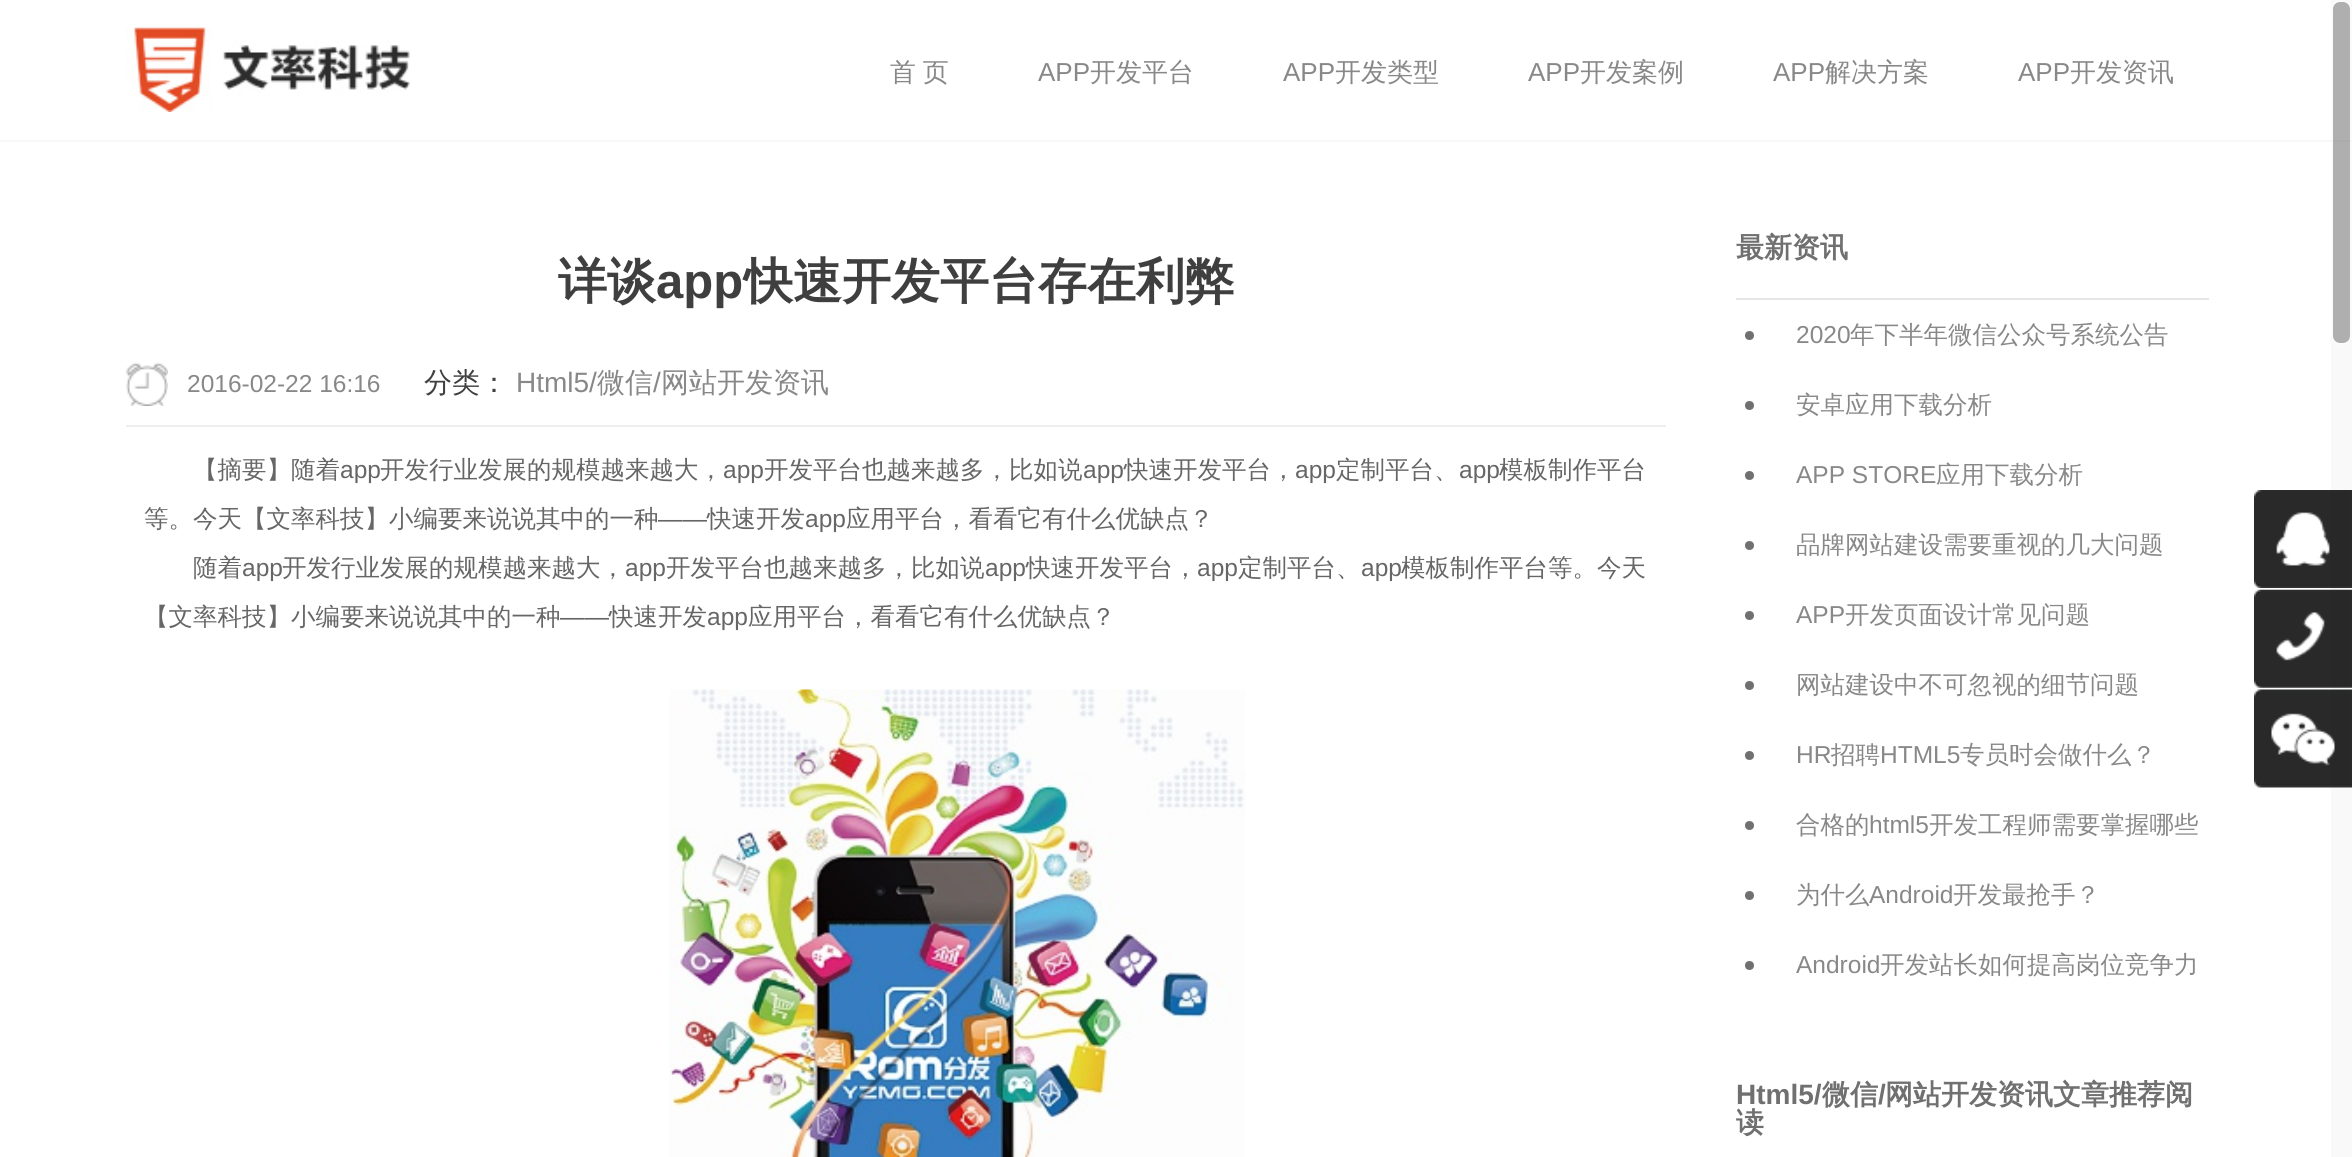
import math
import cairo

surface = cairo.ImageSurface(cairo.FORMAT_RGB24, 2352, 1157)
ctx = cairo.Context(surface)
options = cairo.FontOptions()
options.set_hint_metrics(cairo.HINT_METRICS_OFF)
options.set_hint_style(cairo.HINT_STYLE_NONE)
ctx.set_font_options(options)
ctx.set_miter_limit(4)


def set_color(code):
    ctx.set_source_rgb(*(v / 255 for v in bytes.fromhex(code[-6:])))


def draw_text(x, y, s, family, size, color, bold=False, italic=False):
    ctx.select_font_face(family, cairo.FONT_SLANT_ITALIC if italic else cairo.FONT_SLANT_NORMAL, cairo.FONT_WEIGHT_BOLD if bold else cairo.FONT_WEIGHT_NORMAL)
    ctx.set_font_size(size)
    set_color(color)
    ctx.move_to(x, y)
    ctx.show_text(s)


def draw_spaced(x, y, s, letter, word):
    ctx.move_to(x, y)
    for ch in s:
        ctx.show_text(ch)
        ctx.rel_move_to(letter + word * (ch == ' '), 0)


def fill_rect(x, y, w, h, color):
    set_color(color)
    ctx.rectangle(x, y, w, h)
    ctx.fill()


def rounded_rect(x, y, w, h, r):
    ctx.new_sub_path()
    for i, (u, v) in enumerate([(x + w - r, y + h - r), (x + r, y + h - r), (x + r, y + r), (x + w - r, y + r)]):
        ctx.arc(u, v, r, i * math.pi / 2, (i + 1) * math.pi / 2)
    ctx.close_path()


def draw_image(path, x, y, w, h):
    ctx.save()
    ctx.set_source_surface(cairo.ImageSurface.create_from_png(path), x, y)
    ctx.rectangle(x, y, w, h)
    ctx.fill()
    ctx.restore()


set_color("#ffffff")
ctx.paint()
fill_rect(2331, 0, 21, 1157, "#f9f9f9")
fill_rect(0, 140, 2331, 2, "#f7f7f7")
fill_rect(2331, 140, 21, 2, "#f3f3f3")
draw_image("assets/img1.png", 126, 27, 284, 85)
ctx.select_font_face("WenQuanYi Zen Hei Medium")
ctx.set_font_size(26)
set_color("#888888")
draw_spaced(890, 81, "首 页", 0, -1)
draw_text(1038, 81, "APP", "Liberation Sans", 26, "#888888")
draw_text(1090, 81, "开发平台", "WenQuanYi Zen Hei Medium", 26, "#888888")
draw_text(1283, 81, "APP", "Liberation Sans", 26, "#888888")
draw_text(1335, 81, "开发类型", "WenQuanYi Zen Hei Medium", 26, "#888888")
draw_text(1528, 81, "APP", "Liberation Sans", 26, "#888888")
draw_text(1580, 81, "开发案例", "WenQuanYi Zen Hei Medium", 26, "#888888")
draw_text(1773, 81, "APP", "Liberation Sans", 26, "#888888")
draw_text(1825, 81, "解决方案", "WenQuanYi Zen Hei Medium", 26, "#888888")
draw_text(2018, 81, "APP", "Liberation Sans", 26, "#888888")
draw_text(2070, 81, "开发资讯", "WenQuanYi Zen Hei Medium", 26, "#888888")
ctx.set_source_rgba(0, 0, 0, 0.3)
rounded_rect(2333, 2, 17, 341, 7)
ctx.fill()
rounded_rect(2332, 1, 19, 343, 8)
ctx.set_source_rgba(1, 1, 1, 0.3)
ctx.stroke()
draw_text(558, 298, "详谈", "WenQuanYi Zen Hei", 49, "#3f3f3f", bold=True)
draw_text(656, 298, "app", "Liberation Sans", 49, "#3f3f3f", bold=True)
draw_text(744, 298, "快速开发平台存在利弊", "WenQuanYi Zen Hei", 49, "#3f3f3f", bold=True)
fill_rect(126, 425, 1540, 2, "#f0eded")
draw_image("assets/img2.png", 126, 362, 42, 44)
draw_text(187, 392, "2016-02-22 16:16", "Liberation Sans", 24.5, "#888888")
draw_text(424, 392, "分类：", "WenQuanYi Zen Hei Medium", 28, "#3f3f3f")
draw_text(516, 392, "Html5/", "Liberation Sans", 28, "#888888")
draw_text(597, 392, "微信", "WenQuanYi Zen Hei Medium", 28, "#888888")
draw_text(653, 392, "/", "Liberation Sans", 28, "#888888")
draw_text(661, 392, "网站开发资讯", "WenQuanYi Zen Hei Medium", 28, "#888888")
draw_text(193, 478, "【摘要】随着", "WenQuanYi Zen Hei Medium", 24.5, "#666666")
draw_text(340, 478, "app", "Liberation Sans", 24.5, "#666666")
draw_text(380, 478, "开发行业发展的规模越来越大，", "WenQuanYi Zen Hei Medium", 24.5, "#666666")
draw_text(723, 478, "app", "Liberation Sans", 24.5, "#666666")
draw_text(764, 478, "开发平台也越来越多，比如说", "WenQuanYi Zen Hei Medium", 24.5, "#666666")
draw_text(1083, 478, "app", "Liberation Sans", 24.5, "#666666")
draw_text(1124, 478, "快速开发平台，", "WenQuanYi Zen Hei Medium", 24.5, "#666666")
draw_text(1295, 478, "app", "Liberation Sans", 24.5, "#666666")
draw_text(1336, 478, "定制平台、", "WenQuanYi Zen Hei Medium", 24.5, "#666666")
draw_text(1459, 478, "app", "Liberation Sans", 24.5, "#666666")
draw_text(1499, 478, "模板制作平台", "WenQuanYi Zen Hei Medium", 24.5, "#666666")
draw_text(144, 527, "等。今天【文率科技】小编要来说说其中的一种", "WenQuanYi Zen Hei Medium", 24.5, "#666666")
draw_text(658, 527, "——", "Liberation Sans", 24.5, "#666666")
draw_text(707, 527, "快速开发", "WenQuanYi Zen Hei Medium", 24.5, "#666666")
draw_text(805, 527, "app", "Liberation Sans", 24.5, "#666666")
draw_text(846, 527, "应用平台，看看它有什么优缺点？", "WenQuanYi Zen Hei Medium", 24.5, "#666666")
draw_text(193, 576, "随着", "WenQuanYi Zen Hei Medium", 24.5, "#666666")
draw_text(242, 576, "app", "Liberation Sans", 24.5, "#666666")
draw_text(282, 576, "开发行业发展的规模越来越大，", "WenQuanYi Zen Hei Medium", 24.5, "#666666")
draw_text(625, 576, "app", "Liberation Sans", 24.5, "#666666")
draw_text(666, 576, "开发平台也越来越多，比如说", "WenQuanYi Zen Hei Medium", 24.5, "#666666")
draw_text(985, 576, "app", "Liberation Sans", 24.5, "#666666")
draw_text(1026, 576, "快速开发平台，", "WenQuanYi Zen Hei Medium", 24.5, "#666666")
draw_text(1197, 576, "app", "Liberation Sans", 24.5, "#666666")
draw_text(1238, 576, "定制平台、", "WenQuanYi Zen Hei Medium", 24.5, "#666666")
draw_text(1361, 576, "app", "Liberation Sans", 24.5, "#666666")
draw_text(1401, 576, "模板制作平台等。今天", "WenQuanYi Zen Hei Medium", 24.5, "#666666")
draw_text(144, 625, "【文率科技】小编要来说说其中的一种", "WenQuanYi Zen Hei Medium", 24.5, "#666666")
draw_text(560, 625, "——", "Liberation Sans", 24.5, "#666666")
draw_text(609, 625, "快速开发", "WenQuanYi Zen Hei Medium", 24.5, "#666666")
draw_text(707, 625, "app", "Liberation Sans", 24.5, "#666666")
draw_text(748, 625, "应用平台，看看它有什么优缺点？", "WenQuanYi Zen Hei Medium", 24.5, "#666666")
draw_image("assets/img3.png", 669, 689, 576, 468)
draw_text(1736, 257, "最新资讯", "WenQuanYi Zen Hei", 28, "#707070", bold=True)
fill_rect(1736, 298, 473, 2, "#e6e6e6")
set_color("#707070")
ctx.new_path()
ctx.arc(1749.5, 335.5, 4.5, 0, 2 * math.pi)
ctx.fill()
draw_text(1796, 343, "2020", "Liberation Sans", 24.5, "#888888")
draw_text(1850, 343, "年下半年微信公众号系统公告", "WenQuanYi Zen Hei Medium", 24.5, "#888888")
set_color("#707070")
ctx.new_path()
ctx.arc(1749.5, 405.5, 4.5, 0, 2 * math.pi)
ctx.fill()
draw_text(1796, 413, "安卓应用下载分析", "WenQuanYi Zen Hei Medium", 24.5, "#888888")
set_color("#707070")
ctx.new_path()
ctx.arc(1749.5, 475.5, 4.5, 0, 2 * math.pi)
ctx.fill()
draw_text(1796, 483, "APP STORE", "Liberation Sans", 24.5, "#888888")
draw_text(1936, 483, "应用下载分析", "WenQuanYi Zen Hei Medium", 24.5, "#888888")
set_color("#707070")
ctx.new_path()
ctx.arc(1749.5, 545.5, 4.5, 0, 2 * math.pi)
ctx.fill()
draw_text(1796, 553, "品牌网站建设需要重视的几大问题", "WenQuanYi Zen Hei Medium", 24.5, "#888888")
set_color("#707070")
ctx.new_path()
ctx.arc(1749.5, 615.5, 4.5, 0, 2 * math.pi)
ctx.fill()
draw_text(1796, 623, "APP", "Liberation Sans", 24.5, "#888888")
draw_text(1845, 623, "开发页面设计常见问题", "WenQuanYi Zen Hei Medium", 24.5, "#888888")
set_color("#707070")
ctx.new_path()
ctx.arc(1749.5, 685.5, 4.5, 0, 2 * math.pi)
ctx.fill()
draw_text(1796, 693, "网站建设中不可忽视的细节问题", "WenQuanYi Zen Hei Medium", 24.5, "#888888")
set_color("#707070")
ctx.new_path()
ctx.arc(1749.5, 755.5, 4.5, 0, 2 * math.pi)
ctx.fill()
draw_text(1796, 763, "HR", "Liberation Sans", 24.5, "#888888")
draw_text(1831, 763, "招聘", "WenQuanYi Zen Hei Medium", 24.5, "#888888")
draw_text(1880, 763, "HTML5", "Liberation Sans", 24.5, "#888888")
draw_text(1960, 763, "专员时会做什么？", "WenQuanYi Zen Hei Medium", 24.5, "#888888")
set_color("#707070")
ctx.new_path()
ctx.arc(1749.5, 825.5, 4.5, 0, 2 * math.pi)
ctx.fill()
draw_text(1796, 833, "合格的", "WenQuanYi Zen Hei Medium", 24.5, "#888888")
draw_text(1869, 833, "html5", "Liberation Sans", 24.5, "#888888")
draw_text(1929, 833, "开发工程师需要掌握哪些", "WenQuanYi Zen Hei Medium", 24.5, "#888888")
set_color("#707070")
ctx.new_path()
ctx.arc(1749.5, 895.5, 4.5, 0, 2 * math.pi)
ctx.fill()
draw_text(1796, 903, "为什么", "WenQuanYi Zen Hei Medium", 24.5, "#888888")
draw_text(1869, 903, "Android", "Liberation Sans", 24.5, "#888888")
draw_text(1953, 903, "开发最抢手？", "WenQuanYi Zen Hei Medium", 24.5, "#888888")
set_color("#707070")
ctx.new_path()
ctx.arc(1749.5, 965.5, 4.5, 0, 2 * math.pi)
ctx.fill()
draw_text(1796, 973, "Android", "Liberation Sans", 24.5, "#888888")
draw_text(1880, 973, "开发站长如何提高岗位竞争力", "WenQuanYi Zen Hei Medium", 24.5, "#888888")
draw_text(1736, 1104, "Html5/", "Liberation Sans", 28, "#707070", bold=True)
draw_text(1822, 1104, "微信", "WenQuanYi Zen Hei", 28, "#707070", bold=True)
draw_text(1878, 1104, "/", "Liberation Sans", 28, "#707070", bold=True)
draw_text(1885, 1104, "网站开发资讯文章推荐阅", "WenQuanYi Zen Hei", 28, "#707070", bold=True)
draw_text(1736, 1132, "读", "WenQuanYi Zen Hei", 28, "#707070", bold=True)
draw_image("assets/img4.png", 2254, 490, 98, 98)
draw_image("assets/img5.png", 2254, 589, 98, 99)
draw_image("assets/img6.png", 2254, 689, 98, 99)
surface.write_to_png("output.png")
